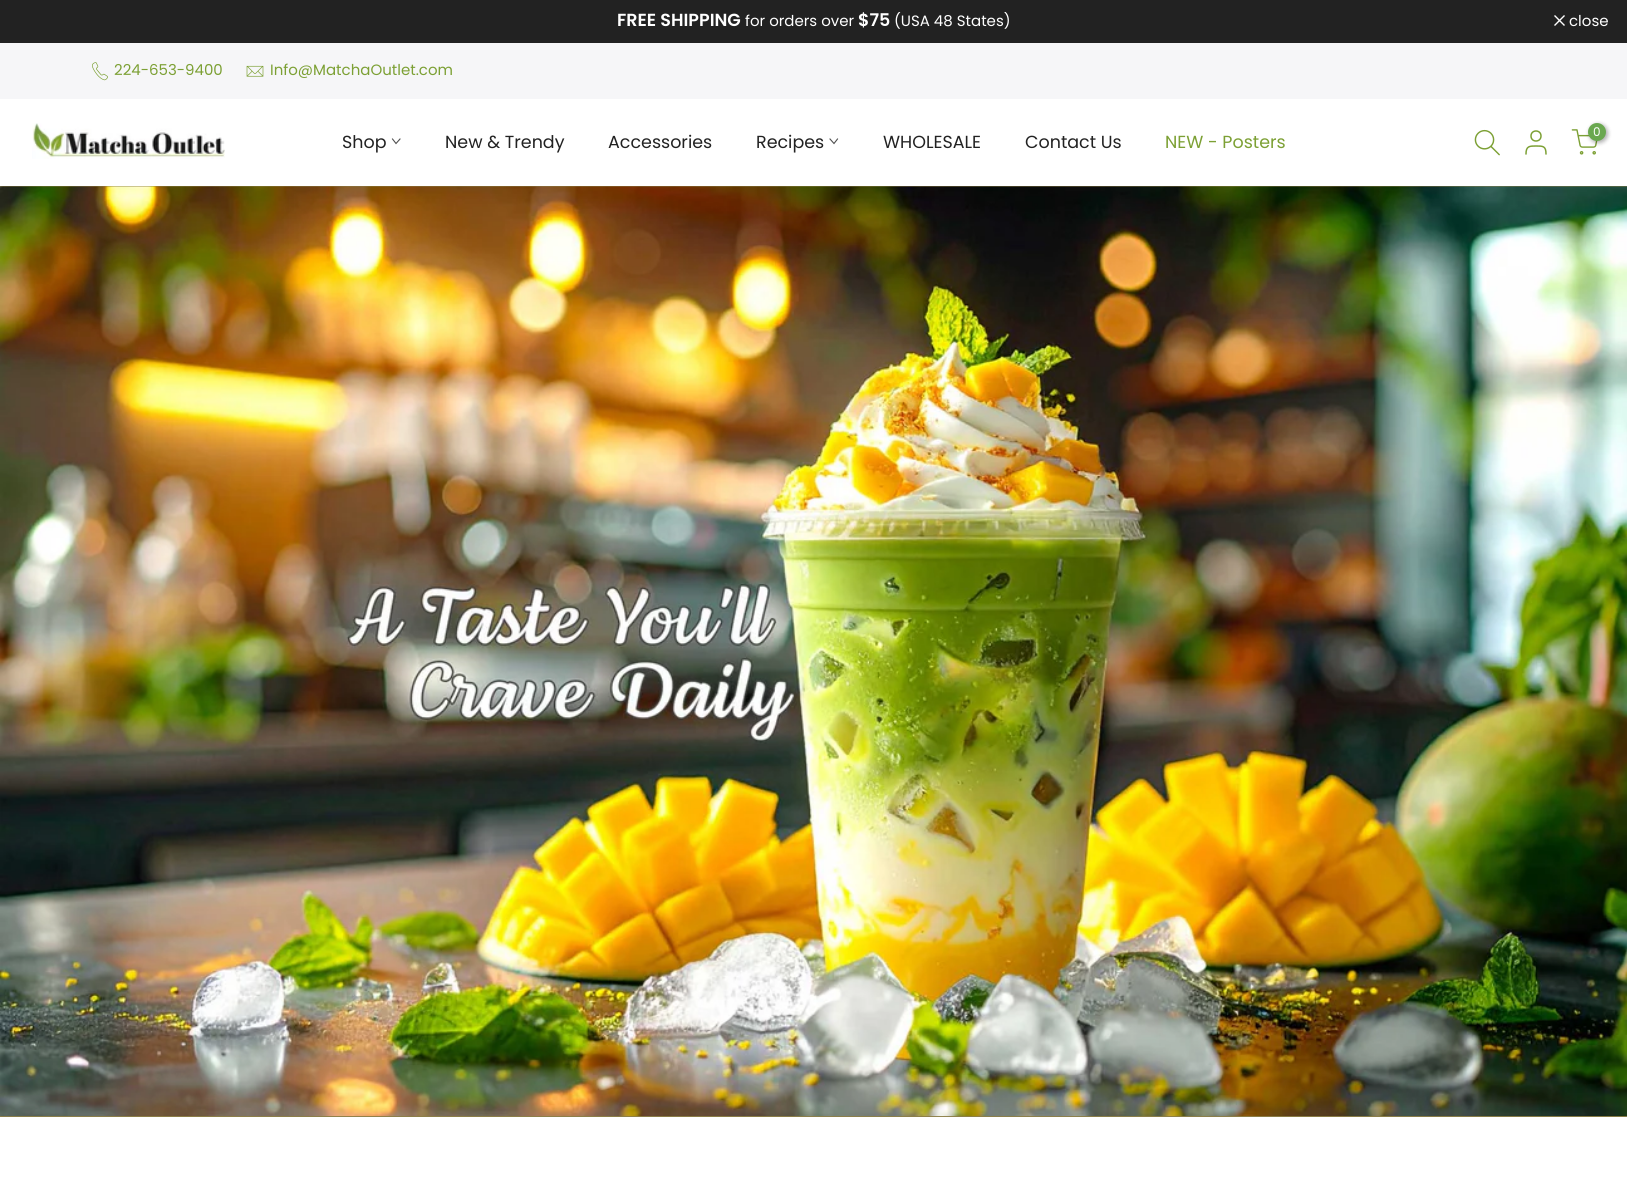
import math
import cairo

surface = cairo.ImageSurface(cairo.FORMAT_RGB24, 1627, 1184)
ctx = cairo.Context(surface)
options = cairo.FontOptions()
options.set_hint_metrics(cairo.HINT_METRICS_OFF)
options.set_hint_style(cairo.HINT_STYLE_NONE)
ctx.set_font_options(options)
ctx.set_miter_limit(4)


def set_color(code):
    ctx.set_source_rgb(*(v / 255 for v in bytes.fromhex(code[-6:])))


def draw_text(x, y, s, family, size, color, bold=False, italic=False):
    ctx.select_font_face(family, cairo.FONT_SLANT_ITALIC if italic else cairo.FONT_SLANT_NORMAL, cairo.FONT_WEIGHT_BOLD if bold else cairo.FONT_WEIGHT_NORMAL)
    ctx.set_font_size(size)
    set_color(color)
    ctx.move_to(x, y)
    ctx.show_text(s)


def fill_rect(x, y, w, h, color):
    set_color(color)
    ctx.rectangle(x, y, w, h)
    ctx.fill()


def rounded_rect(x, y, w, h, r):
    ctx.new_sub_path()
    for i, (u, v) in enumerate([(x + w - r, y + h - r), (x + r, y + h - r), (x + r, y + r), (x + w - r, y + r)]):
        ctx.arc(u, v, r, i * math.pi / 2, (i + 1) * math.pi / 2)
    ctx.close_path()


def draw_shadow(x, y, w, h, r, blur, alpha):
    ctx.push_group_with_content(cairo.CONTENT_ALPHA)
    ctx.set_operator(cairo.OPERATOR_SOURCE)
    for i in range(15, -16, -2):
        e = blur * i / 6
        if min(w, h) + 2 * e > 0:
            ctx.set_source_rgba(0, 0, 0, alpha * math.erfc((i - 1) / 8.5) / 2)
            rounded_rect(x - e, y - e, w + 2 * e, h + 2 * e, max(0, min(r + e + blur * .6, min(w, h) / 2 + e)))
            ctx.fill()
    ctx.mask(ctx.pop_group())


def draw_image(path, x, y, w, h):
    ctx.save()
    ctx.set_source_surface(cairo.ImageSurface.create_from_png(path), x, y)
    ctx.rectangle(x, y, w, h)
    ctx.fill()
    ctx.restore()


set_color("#ffffff")
ctx.paint()
fill_rect(0, 0, 1627, 43, "#222222")
draw_text(617, 26, "FREE SHIPPING", "Poppins SemiBold", 17.5, "#ffffff")
draw_text(745, 26, "for orders over", "Poppins", 15, "#ffffff")
draw_text(858, 26, "$75", "Poppins SemiBold", 17.5, "#ffffff")
draw_text(894, 26, "(USA 48 States)", "Poppins", 15, "#ffffff")
ctx.new_path()
ctx.move_to(1564.5, 15.5)
ctx.line_to(1554.5, 25.5)
ctx.move_to(1564.5, 25.5)
ctx.line_to(1554.5, 15.5)
ctx.set_line_width(1.4)
ctx.stroke()
draw_text(1569, 26, "close", "Poppins", 15, "#ffffff")
fill_rect(0, 43, 1627, 56, "#f6f6f8")
draw_image("assets/img1.png", 92, 62, 16, 19)
draw_text(114, 75, "224-653-9400", "Poppins", 15, "#7ca034")
draw_image("assets/img2.png", 246, 65, 18, 12)
draw_text(270, 75, "Info@MatchaOutlet.com", "Poppins", 15, "#7ca034")
draw_image("assets/img3.png", 32, 123, 193, 36)
draw_image("assets/img4.png", 1474, 129, 26, 27)
ctx.arc(1536, 136, 5, 0, 2 * math.pi)
ctx.set_line_width(1.5)
ctx.stroke()
ctx.new_path()
ctx.move_to(1546, 154)
ctx.curve_to(1546, 146, 1543, 146, 1536, 146)
ctx.curve_to(1529.5, 146, 1526, 146, 1526, 154)
ctx.set_line_cap(cairo.LINE_CAP_ROUND)
ctx.set_line_join(cairo.LINE_JOIN_ROUND)
ctx.stroke()
draw_image("assets/img5.png", 1571, 129, 27, 26)
set_color("#000000")
draw_shadow(1589, 124, 19, 19, 9.5, 2, 0.3)
set_color("#6aa84f")
ctx.arc(1597, 132, 9, 0, 2 * math.pi)
ctx.fill()
draw_text(1593, 136, "0", "Poppins", 12, "#ffffff")
draw_text(342, 148, "Shop", "Poppins", 17.5, "#222222")
ctx.new_path()
ctx.move_to(400, 139)
ctx.line_to(396, 143.5)
ctx.line_to(392.5, 139)
set_color("#4e4e4e")
ctx.set_line_width(1.1)
ctx.set_line_cap(cairo.LINE_CAP_SQUARE)
ctx.set_line_join(cairo.LINE_JOIN_MITER)
ctx.stroke()
draw_text(445, 148, "New & Trendy", "Poppins", 17.5, "#222222")
draw_text(608, 148, "Accessories", "Poppins", 17.5, "#222222")
draw_text(756, 148, "Recipes", "Poppins", 17.5, "#222222")
ctx.new_path()
ctx.move_to(837.5, 139)
ctx.line_to(834, 143.5)
ctx.line_to(830, 139)
set_color("#4e4e4e")
ctx.stroke()
draw_text(883, 148, "WHOLESALE", "Poppins", 17.5, "#222222")
draw_text(1025, 148, "Contact Us", "Poppins", 17.5, "#222222")
draw_text(1165, 148, "NEW - Posters", "Poppins", 17.5, "#7ca034")
fill_rect(0, 186, 1627, 931, "#8d7f48")
draw_image("assets/img6.png", 0, 186, 1627, 931)
surface.write_to_png("output.png")
